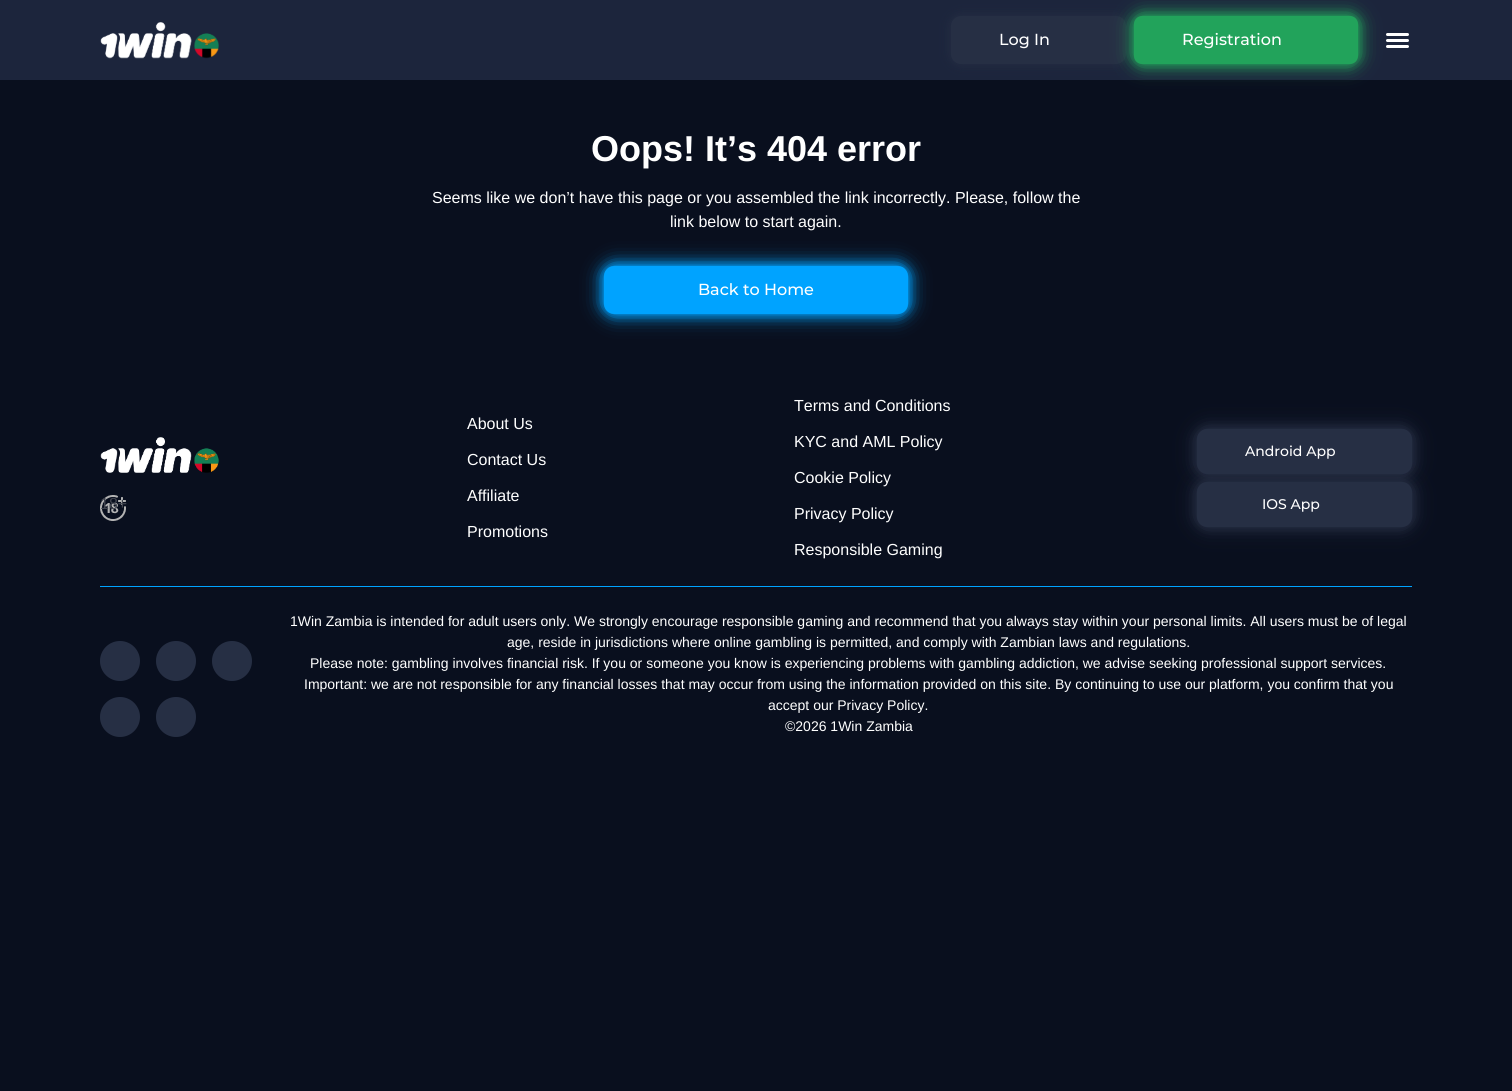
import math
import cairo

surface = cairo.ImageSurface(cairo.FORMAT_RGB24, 1512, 1091)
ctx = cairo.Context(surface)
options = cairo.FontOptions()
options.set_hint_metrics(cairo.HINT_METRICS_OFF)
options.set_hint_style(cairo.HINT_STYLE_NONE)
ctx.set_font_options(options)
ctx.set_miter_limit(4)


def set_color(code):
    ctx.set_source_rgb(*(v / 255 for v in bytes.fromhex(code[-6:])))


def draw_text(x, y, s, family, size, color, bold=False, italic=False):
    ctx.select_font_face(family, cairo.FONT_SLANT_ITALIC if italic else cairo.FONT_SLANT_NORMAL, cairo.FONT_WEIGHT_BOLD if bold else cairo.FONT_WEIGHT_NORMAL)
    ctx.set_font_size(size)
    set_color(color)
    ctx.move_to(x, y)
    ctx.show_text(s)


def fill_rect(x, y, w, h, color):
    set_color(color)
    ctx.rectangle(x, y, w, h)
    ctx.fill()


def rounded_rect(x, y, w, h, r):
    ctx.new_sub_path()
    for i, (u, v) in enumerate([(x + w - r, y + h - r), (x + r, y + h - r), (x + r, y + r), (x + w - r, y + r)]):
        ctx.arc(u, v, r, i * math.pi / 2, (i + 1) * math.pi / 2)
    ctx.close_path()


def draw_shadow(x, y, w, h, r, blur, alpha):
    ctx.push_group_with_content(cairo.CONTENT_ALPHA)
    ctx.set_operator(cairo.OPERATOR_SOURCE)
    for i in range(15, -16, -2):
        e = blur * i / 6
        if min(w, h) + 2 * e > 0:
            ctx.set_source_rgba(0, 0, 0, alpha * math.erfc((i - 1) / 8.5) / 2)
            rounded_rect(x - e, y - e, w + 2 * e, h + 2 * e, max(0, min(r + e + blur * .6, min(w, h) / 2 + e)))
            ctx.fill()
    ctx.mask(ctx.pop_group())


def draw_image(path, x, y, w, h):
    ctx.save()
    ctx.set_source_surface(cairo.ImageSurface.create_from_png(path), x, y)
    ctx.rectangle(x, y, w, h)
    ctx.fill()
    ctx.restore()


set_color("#090f1e")
ctx.paint()
fill_rect(0, 0, 1512, 80, "#1c253c")
draw_image("assets/img1.png", 100, 22, 119, 37)
set_color("#262f44")
draw_shadow(951, 16, 175, 48, 10, 5, 1)
set_color("#262f44")
rounded_rect(951, 16, 175, 48, 10)
ctx.fill()
draw_text(999, 45, "Log In", "Montserrat Medium", 16, "#ffffff")
set_color("#22a35b")
draw_shadow(1134, 16, 224, 48, 8, 5, 1)
draw_shadow(1134, 16, 224, 48, 8, 10, 1)
set_color("#22a35b")
rounded_rect(1134, 16, 224, 48, 8)
ctx.fill()
draw_text(1182, 45, "Registration", "Montserrat Medium", 16, "#ffffff")
rounded_rect(1386, 39, 23, 3, 1.5)
ctx.fill()
rounded_rect(1386, 33, 23, 3, 1.5)
ctx.fill()
rounded_rect(1386, 45, 23, 3, 1.5)
ctx.fill()
draw_text(591, 161, "Oops! It’s 404 error", "Liberation Sans", 36, "#ffffff", bold=True)
draw_text(432, 203, "Seems like we don’t have this page or you assembled the link incorrectly. Please, follow the", "Liberation Sans", 16, "#ffffff")
draw_text(670, 227, "link below to start again.", "Liberation Sans", 16, "#ffffff")
set_color("#00a3ff")
draw_shadow(604, 266, 304, 48, 10, 5, 1)
draw_shadow(604, 266, 304, 48, 10, 10, 1)
set_color("#00a3ff")
rounded_rect(604, 266, 304, 48, 10)
ctx.fill()
draw_text(698, 295, "Back to Home", "Montserrat Medium", 16, "#ffffff")
draw_image("assets/img2.png", 100, 437, 119, 36)
draw_image("assets/img3.png", 100, 495, 26, 26)
draw_text(100, 509, "18+", "Liberation Sans", 16, "#41454f")
draw_text(467, 429, "About Us", "Liberation Sans", 16, "#ffffff")
draw_text(467, 465, "Contact Us", "Liberation Sans", 16, "#ffffff")
draw_text(467, 501, "Affiliate", "Liberation Sans", 16, "#ffffff")
draw_text(467, 537, "Promotions", "Liberation Sans", 16, "#ffffff")
draw_text(794, 411, "Terms and Conditions", "Liberation Sans", 16, "#ffffff")
draw_text(794, 447, "KYC and AML Policy", "Liberation Sans", 16, "#ffffff")
draw_text(794, 483, "Cookie Policy", "Liberation Sans", 16, "#ffffff")
draw_text(794, 519, "Privacy Policy", "Liberation Sans", 16, "#ffffff")
draw_text(794, 555, "Responsible Gaming", "Liberation Sans", 16, "#ffffff")
set_color("#262f44")
draw_shadow(1197, 429, 215, 45, 10, 5, 1)
draw_shadow(1197, 429, 215, 45, 10, 10, 1)
set_color("#262f44")
rounded_rect(1197, 429, 215, 45, 10)
ctx.fill()
draw_text(1245, 456, "Android App", "Montserrat Medium", 14, "#ffffff")
set_color("#262f44")
draw_shadow(1197, 482, 215, 45, 10, 5, 1)
draw_shadow(1197, 482, 215, 45, 10, 10, 1)
set_color("#262f44")
rounded_rect(1197, 482, 215, 45, 10)
ctx.fill()
draw_text(1262, 509, "IOS App", "Montserrat Medium", 14, "#ffffff")
fill_rect(100, 586, 1312, 1, "#00a3ff")
set_color("#262f44")
ctx.new_path()
ctx.arc(120, 661, 20, 0, 2 * math.pi)
ctx.fill()
ctx.arc(176, 661, 20, 0, 2 * math.pi)
ctx.fill()
ctx.arc(232, 661, 20, 0, 2 * math.pi)
ctx.fill()
ctx.arc(120, 717, 20, 0, 2 * math.pi)
ctx.fill()
ctx.arc(176, 717, 20, 0, 2 * math.pi)
ctx.fill()
draw_text(290, 626, "1Win Zambia is intended for adult users only. We strongly encourage responsible gaming and recommend that you always stay within your personal limits. All users must be of legal", "Liberation Sans", 14, "#ffffff")
draw_text(507, 647, "age, reside in jurisdictions where online gambling is permitted, and comply with Zambian laws and regulations.", "Liberation Sans", 14, "#ffffff")
draw_text(310, 668, "Please note: gambling involves financial risk. If you or someone you know is experiencing problems with gambling addiction, we advise seeking professional support services.", "Liberation Sans", 14, "#ffffff")
draw_text(304, 689, "Important: we are not responsible for any financial losses that may occur from using the information provided on this site. By continuing to use our platform, you confirm that you", "Liberation Sans", 14, "#ffffff")
draw_text(768, 710, "accept our Privacy Policy.", "Liberation Sans", 14, "#ffffff")
draw_text(785, 731, "©2026 1Win Zambia", "Liberation Sans", 14, "#ffffff")
surface.write_to_png("output.png")
